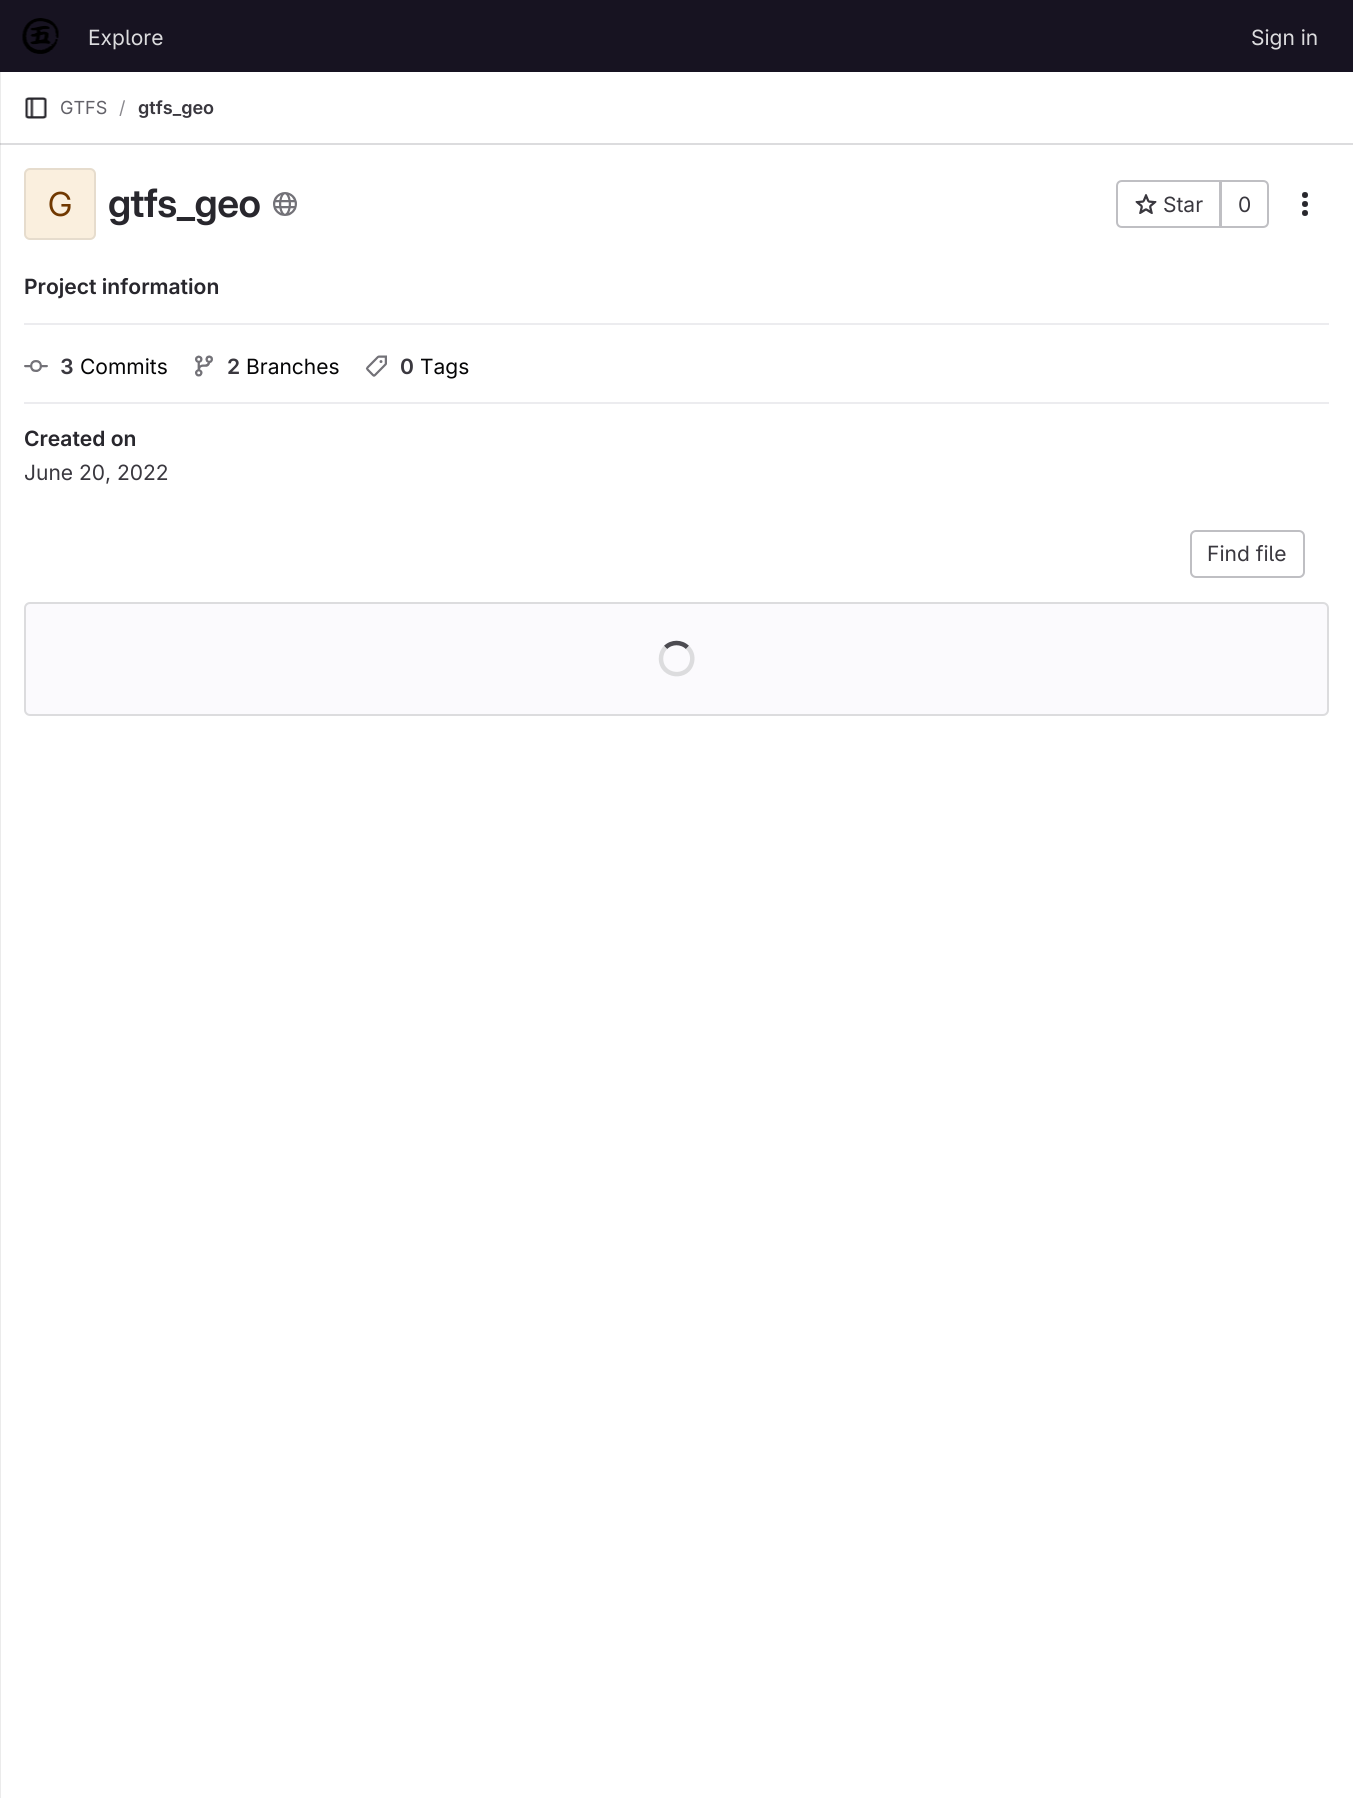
import math
import cairo

surface = cairo.ImageSurface(cairo.FORMAT_RGB24, 1353, 1798)
ctx = cairo.Context(surface)
options = cairo.FontOptions()
options.set_hint_metrics(cairo.HINT_METRICS_OFF)
options.set_hint_style(cairo.HINT_STYLE_NONE)
ctx.set_font_options(options)
ctx.set_miter_limit(4)


def set_color(code):
    ctx.set_source_rgb(*(v / 255 for v in bytes.fromhex(code[-6:])))


def draw_text(x, y, s, family, size, color, bold=False, italic=False):
    ctx.select_font_face(family, cairo.FONT_SLANT_ITALIC if italic else cairo.FONT_SLANT_NORMAL, cairo.FONT_WEIGHT_BOLD if bold else cairo.FONT_WEIGHT_NORMAL)
    ctx.set_font_size(size)
    set_color(color)
    ctx.move_to(x, y)
    ctx.show_text(s)


def draw_spaced(x, y, s, letter, word):
    ctx.move_to(x, y)
    for ch in s:
        ctx.show_text(ch)
        ctx.rel_move_to(letter + word * (ch == ' '), 0)


def fill_rect(x, y, w, h, color):
    set_color(color)
    ctx.rectangle(x, y, w, h)
    ctx.fill()


def rounded_rect(x, y, w, h, r):
    ctx.new_sub_path()
    for i, (u, v) in enumerate([(x + w - r, y + h - r), (x + r, y + h - r), (x + r, y + r), (x + w - r, y + r)]):
        ctx.arc(u, v, r, i * math.pi / 2, (i + 1) * math.pi / 2)
    ctx.close_path()


def draw_image(path, x, y, w, h):
    ctx.save()
    ctx.set_source_surface(cairo.ImageSurface.create_from_png(path), x, y)
    ctx.rectangle(x, y, w, h)
    ctx.fill()
    ctx.restore()


set_color("#ffffff")
ctx.paint()
fill_rect(0, 72, 1, 1726, "#ebebeb")
fill_rect(0, 0, 1353, 72, "#171321")
draw_image("assets/img1.png", 22, 18, 37, 36)
draw_text(88, 45, "Explore", "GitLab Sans", 21, "#dcdcde")
draw_text(1251, 45, "Sign in", "GitLab Sans", 21, "#dcdcde")
fill_rect(0, 143, 1353, 2, "#dcdcde")
fill_rect(0, 143, 1, 2, "#cbcbcd")
draw_image("assets/img2.png", 25, 97, 22, 22)
draw_text(60, 114, "GTFS", "GitLab Sans", 18, "#626168")
draw_text(119, 114, "/", "GitLab Sans", 18, "#89888d")
draw_text(138, 114, "gtfs_geo", "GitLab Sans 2 SemiBold", 18, "#3a383f")
set_color("#faefde")
rounded_rect(24, 168, 72, 72, 6)
ctx.fill()
rounded_rect(25, 169, 70, 70, 5)
ctx.set_source_rgba(0.02, 0.02, 0.024, 0.08)
ctx.stroke()
draw_text(48, 216, "G", "GitLab Sans 2", 33, "#703800")
ctx.select_font_face("GitLab Sans SemiBold")
ctx.set_font_size(39)
set_color("#28272d")
draw_spaced(108, 217, "gtfs_geo", -0.5, 0)
draw_image("assets/img3.png", 273, 192, 24, 24)
ctx.new_path()
ctx.move_to(1122, 181)
ctx.line_to(1220, 181)
ctx.line_to(1220, 227)
ctx.line_to(1122, 227)
ctx.curve_to(1119, 227, 1117, 225, 1117, 222)
ctx.line_to(1117, 186)
ctx.curve_to(1117, 183, 1119, 181, 1122, 181)
ctx.close_path()
set_color("#bfbfc3")
ctx.stroke()
draw_image("assets/img4.png", 1135, 194, 22, 20)
draw_text(1163, 212, "Star", "GitLab Sans", 21, "#3a383f")
set_color("#ffffff")
ctx.new_path()
ctx.move_to(1221, 181)
ctx.line_to(1263, 181)
ctx.curve_to(1266, 181, 1268, 183, 1268, 186)
ctx.line_to(1268, 222)
ctx.curve_to(1268, 225, 1266, 227, 1263, 227)
ctx.line_to(1221, 227)
ctx.close_path()
ctx.fill_preserve()
set_color("#bfbfc3")
ctx.stroke()
draw_text(1238, 212, "0", "GitLab Sans", 21, "#3a383f")
draw_image("assets/img5.png", 1302, 192, 6, 24)
fill_rect(24, 323, 1305, 2, "#ececef")
draw_text(24, 294, "Project information", "GitLab Sans 2 SemiBold", 21, "#28272d")
fill_rect(24, 402, 1305, 2, "#ececef")
draw_image("assets/img6.png", 24, 360, 24, 12)
draw_text(60, 374, "3", "GitLab Sans 2 SemiBold", 21, "#3a383f")
draw_text(80, 374, "Commits", "GitLab Sans", 21, "#050506")
draw_image("assets/img7.png", 195, 355, 18, 22)
draw_text(227, 374, "2", "GitLab Sans 2 SemiBold", 21, "#3a383f")
draw_text(246, 374, "Branches", "GitLab Sans", 21, "#050506")
draw_image("assets/img8.png", 365, 355, 22, 22)
draw_text(400, 374, "0", "GitLab Sans 2 SemiBold", 21, "#3a383f")
draw_text(420, 374, "Tags", "GitLab Sans", 21, "#050506")
draw_text(24, 446, "Created on", "GitLab Sans 2 SemiBold", 21, "#28272d")
draw_text(24, 480, "June 20, 2022", "GitLab Sans", 21, "#3a383f")
rounded_rect(1191, 531, 113, 46, 5)
set_color("#bfbfc3")
ctx.stroke()
draw_text(1207, 561, "Find file", "GitLab Sans", 21, "#3a383f")
set_color("#fbfafd")
rounded_rect(25, 603, 1303, 112, 5)
ctx.fill_preserve()
set_color("#dcdcde")
ctx.stroke()
ctx.new_path()
ctx.move_to(665.5, 647.5)
ctx.curve_to(671.5, 641.5, 681.5, 641.5, 687.5, 647.5)
set_color("#4c4b51")
ctx.set_line_width(4.5)
ctx.stroke()
ctx.new_path()
ctx.move_to(687.5, 647.5)
ctx.curve_to(691.5, 651, 693, 656.5, 692, 661.5)
ctx.curve_to(688.5, 680, 661, 677.5, 661, 658.5)
ctx.curve_to(661, 654.5, 662.5, 650.5, 665.5, 647.5)
set_color("#dcdcde")
ctx.stroke()
surface.write_to_png("output.png")
